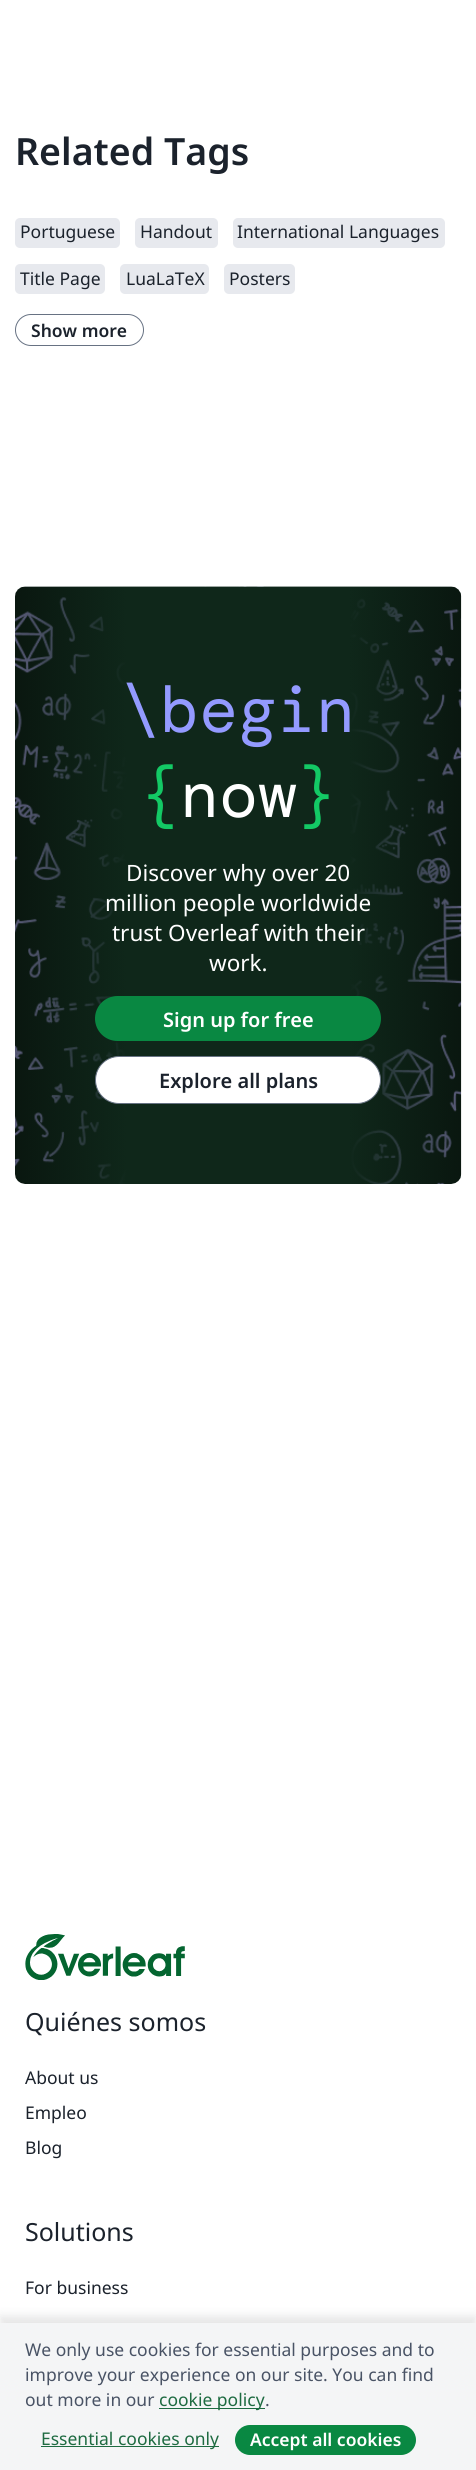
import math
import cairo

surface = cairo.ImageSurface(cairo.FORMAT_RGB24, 476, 2470)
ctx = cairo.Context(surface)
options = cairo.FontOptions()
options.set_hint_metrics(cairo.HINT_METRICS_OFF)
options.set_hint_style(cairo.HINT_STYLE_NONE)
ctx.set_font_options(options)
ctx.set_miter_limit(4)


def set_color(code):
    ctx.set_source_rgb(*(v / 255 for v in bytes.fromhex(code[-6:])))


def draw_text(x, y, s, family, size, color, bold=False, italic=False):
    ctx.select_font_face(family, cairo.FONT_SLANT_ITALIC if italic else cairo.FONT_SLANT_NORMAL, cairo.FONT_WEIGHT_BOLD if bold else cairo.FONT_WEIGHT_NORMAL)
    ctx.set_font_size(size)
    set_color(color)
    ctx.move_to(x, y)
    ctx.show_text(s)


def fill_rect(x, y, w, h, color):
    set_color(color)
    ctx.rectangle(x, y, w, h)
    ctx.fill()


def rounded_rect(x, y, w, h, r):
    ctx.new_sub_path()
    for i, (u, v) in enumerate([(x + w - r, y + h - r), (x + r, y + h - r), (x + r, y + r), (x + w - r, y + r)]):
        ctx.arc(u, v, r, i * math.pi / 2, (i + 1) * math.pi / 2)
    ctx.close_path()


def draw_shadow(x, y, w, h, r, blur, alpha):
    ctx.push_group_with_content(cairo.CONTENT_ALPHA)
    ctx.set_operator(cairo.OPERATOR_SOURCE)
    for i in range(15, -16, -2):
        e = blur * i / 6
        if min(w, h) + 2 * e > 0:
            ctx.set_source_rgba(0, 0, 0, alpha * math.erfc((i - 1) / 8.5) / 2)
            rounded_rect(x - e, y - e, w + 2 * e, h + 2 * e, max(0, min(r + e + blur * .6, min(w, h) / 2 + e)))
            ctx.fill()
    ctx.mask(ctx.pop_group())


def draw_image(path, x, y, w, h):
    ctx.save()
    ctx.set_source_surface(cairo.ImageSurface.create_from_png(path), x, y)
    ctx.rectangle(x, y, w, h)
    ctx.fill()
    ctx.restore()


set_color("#ffffff")
ctx.paint()
draw_text(15, 165, "Related Tags", "Noto Sans SemiBold", 37.5, "#1b222c")
set_color("#e7e9ee")
rounded_rect(15, 218, 105, 30, 5)
ctx.fill()
draw_text(20, 238, "Portuguese", "Noto Sans", 17.5, "#1b222c")
set_color("#e7e9ee")
rounded_rect(135, 218, 83, 30, 5)
ctx.fill()
draw_text(140, 238, "Handout", "Noto Sans", 17.5, "#1b222c")
set_color("#e7e9ee")
rounded_rect(233, 218, 212, 30, 5)
ctx.fill()
draw_text(237, 238, "International Languages", "Noto Sans", 17.5, "#1b222c")
set_color("#e7e9ee")
rounded_rect(15, 264, 90, 30, 5)
ctx.fill()
draw_text(20, 285, "Title Page", "Noto Sans", 17.5, "#1b222c")
set_color("#e7e9ee")
rounded_rect(120, 264, 89, 30, 5)
ctx.fill()
draw_text(126, 285, "LuaLaTeX", "Noto Sans", 17.5, "#1b222c")
set_color("#e7e9ee")
rounded_rect(224, 264, 71, 30, 5)
ctx.fill()
draw_text(229, 285, "Posters", "Noto Sans", 17.5, "#1b222c")
rounded_rect(15.5, 314.5, 128, 31, 15.5)
set_color("#677283")
ctx.set_line_width(1)
ctx.stroke()
draw_text(31, 337, "Show more", "Noto Sans SemiBold", 17.5, "#1b222c")
set_color("#f4f5f6")
rounded_rect(15, 586, 446, 598, 10)
ctx.fill()
draw_image("assets/img1.png", 15, 586, 447, 598)
draw_text(121, 732, "\\begin", "DM Mono", 65, "#939aff")
draw_text(141, 817, "{", "DM Mono", 65, "#13c965")
draw_text(180, 817, "now", "DM Mono", 65, "#ffffff")
draw_text(297, 817, "}", "DM Mono", 65, "#13c965")
draw_text(126, 881, "Discover why over 20", "Noto Sans", 22.5, "#ffffff")
draw_text(105, 911, "million people worldwide", "Noto Sans", 22.5, "#ffffff")
draw_text(112, 941, "trust Overleaf with their", "Noto Sans", 22.5, "#ffffff")
draw_text(209, 971, "work.", "Noto Sans", 22.5, "#ffffff")
set_color("#098842")
rounded_rect(95, 996, 286, 45, 22.5)
ctx.fill()
draw_text(163, 1027, "Sign up for free", "Noto Sans SemiBold", 20, "#ffffff")
rounded_rect(95.5, 1056.5, 285, 47, 23.5)
ctx.fill_preserve()
set_color("#677283")
ctx.stroke()
draw_text(159, 1088, "Explore all plans", "Noto Sans SemiBold", 20, "#1b222c")
draw_image("assets/img2.png", 25, 1934, 160, 46)
draw_text(25, 2031, "Quiénes somos", "Noto Sans", 25, "#1b222c")
draw_text(25, 2084, "About us", "Noto Sans", 17.5, "#1b222c")
draw_text(25, 2119, "Empleo", "Noto Sans", 17.5, "#1b222c")
draw_text(25, 2154, "Blog", "Noto Sans", 17.5, "#1b222c")
draw_text(25, 2241, "Solutions", "Noto Sans", 25, "#1b222c")
draw_text(25, 2294, "For business", "Noto Sans", 17.5, "#1b222c")
set_color("#000000")
draw_shadow(0, 2316, 476, 148, 0, 5, 0.1)
fill_rect(0, 2323, 476, 147, "#f4f5f6")
draw_text(25, 2356, "We only use cookies for essential purposes and to", "Noto Sans", 17.5, "#495365")
draw_text(25, 2381, "improve your experience on our site. You can find", "Noto Sans", 17.5, "#495365")
draw_text(25, 2406, "out more in our", "Noto Sans", 17.5, "#495365")
fill_rect(159, 2408, 106, 1, "#1e6b41")
draw_text(159, 2406, "cookie policy", "Noto Sans", 17.5, "#1e6b41")
draw_text(265, 2406, ".", "Noto Sans", 17.5, "#495365")
fill_rect(41, 2446, 178, 1, "#1e6b41")
draw_text(41, 2445, "Essential cookies only", "Noto Sans", 17.5, "#1e6b41")
set_color("#098842")
rounded_rect(235, 2425, 181, 30, 15)
ctx.fill()
draw_text(250, 2446, "Accept all cookies", "Noto Sans SemiBold", 17.5, "#ffffff")
surface.write_to_png("output.png")
